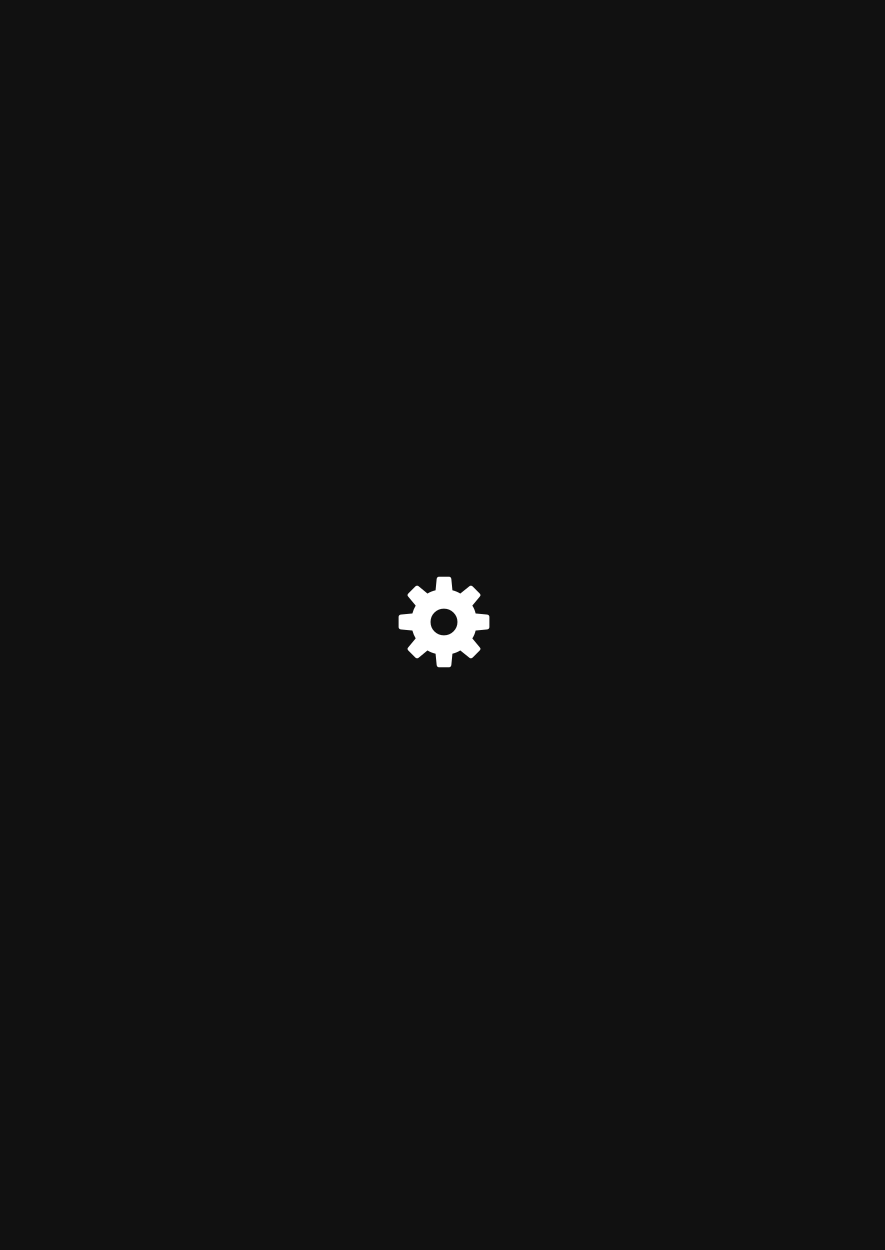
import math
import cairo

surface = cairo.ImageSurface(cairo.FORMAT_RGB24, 885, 1250)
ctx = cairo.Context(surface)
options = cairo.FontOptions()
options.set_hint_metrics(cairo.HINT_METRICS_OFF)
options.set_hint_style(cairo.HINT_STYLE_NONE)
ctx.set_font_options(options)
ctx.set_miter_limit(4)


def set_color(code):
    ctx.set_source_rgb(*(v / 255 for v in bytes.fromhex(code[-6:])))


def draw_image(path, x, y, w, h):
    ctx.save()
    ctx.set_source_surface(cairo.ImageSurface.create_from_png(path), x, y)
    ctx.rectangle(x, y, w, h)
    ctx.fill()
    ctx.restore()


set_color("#111111")
ctx.paint()
draw_image("assets/img1.png", 398, 576, 92, 92)
surface.write_to_png("output.png")
